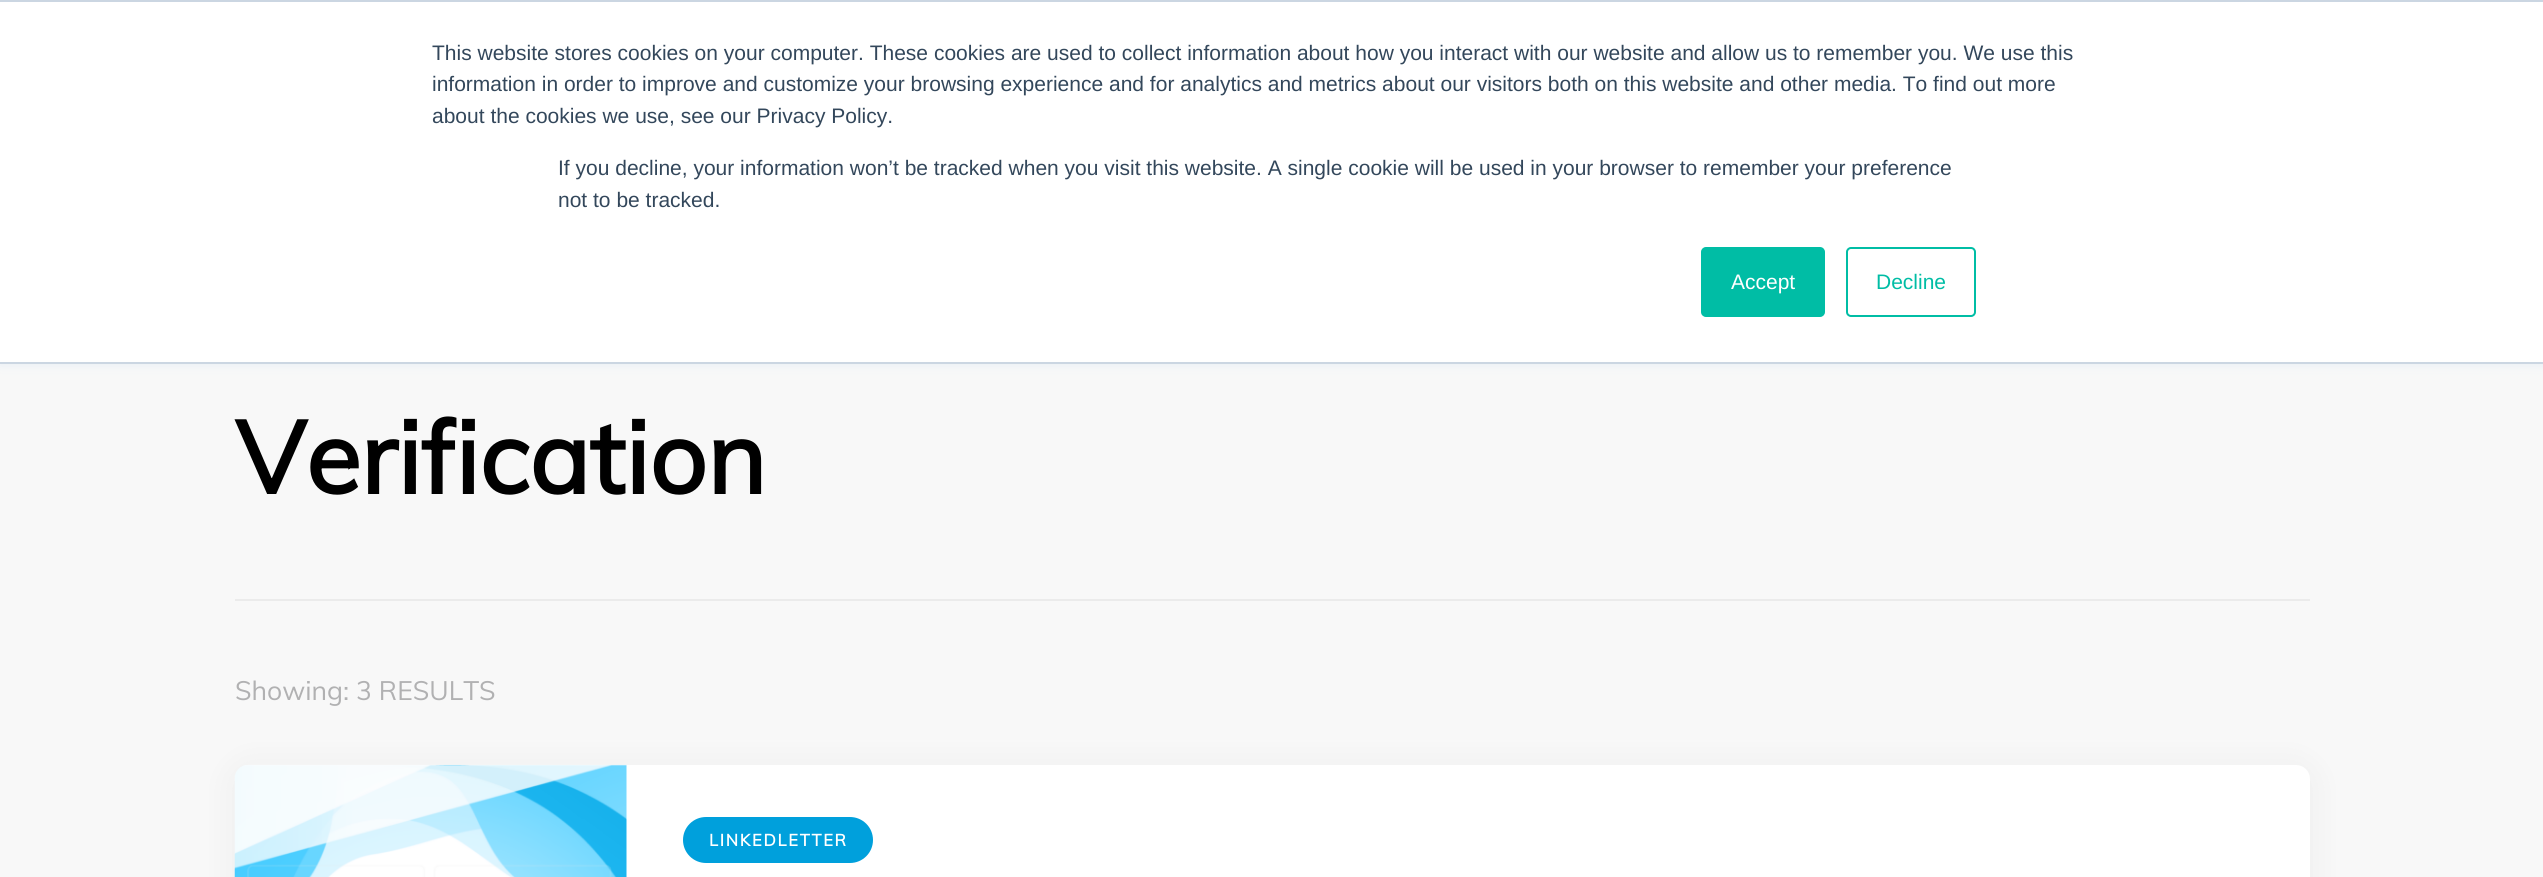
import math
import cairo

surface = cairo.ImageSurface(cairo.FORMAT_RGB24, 2543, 877)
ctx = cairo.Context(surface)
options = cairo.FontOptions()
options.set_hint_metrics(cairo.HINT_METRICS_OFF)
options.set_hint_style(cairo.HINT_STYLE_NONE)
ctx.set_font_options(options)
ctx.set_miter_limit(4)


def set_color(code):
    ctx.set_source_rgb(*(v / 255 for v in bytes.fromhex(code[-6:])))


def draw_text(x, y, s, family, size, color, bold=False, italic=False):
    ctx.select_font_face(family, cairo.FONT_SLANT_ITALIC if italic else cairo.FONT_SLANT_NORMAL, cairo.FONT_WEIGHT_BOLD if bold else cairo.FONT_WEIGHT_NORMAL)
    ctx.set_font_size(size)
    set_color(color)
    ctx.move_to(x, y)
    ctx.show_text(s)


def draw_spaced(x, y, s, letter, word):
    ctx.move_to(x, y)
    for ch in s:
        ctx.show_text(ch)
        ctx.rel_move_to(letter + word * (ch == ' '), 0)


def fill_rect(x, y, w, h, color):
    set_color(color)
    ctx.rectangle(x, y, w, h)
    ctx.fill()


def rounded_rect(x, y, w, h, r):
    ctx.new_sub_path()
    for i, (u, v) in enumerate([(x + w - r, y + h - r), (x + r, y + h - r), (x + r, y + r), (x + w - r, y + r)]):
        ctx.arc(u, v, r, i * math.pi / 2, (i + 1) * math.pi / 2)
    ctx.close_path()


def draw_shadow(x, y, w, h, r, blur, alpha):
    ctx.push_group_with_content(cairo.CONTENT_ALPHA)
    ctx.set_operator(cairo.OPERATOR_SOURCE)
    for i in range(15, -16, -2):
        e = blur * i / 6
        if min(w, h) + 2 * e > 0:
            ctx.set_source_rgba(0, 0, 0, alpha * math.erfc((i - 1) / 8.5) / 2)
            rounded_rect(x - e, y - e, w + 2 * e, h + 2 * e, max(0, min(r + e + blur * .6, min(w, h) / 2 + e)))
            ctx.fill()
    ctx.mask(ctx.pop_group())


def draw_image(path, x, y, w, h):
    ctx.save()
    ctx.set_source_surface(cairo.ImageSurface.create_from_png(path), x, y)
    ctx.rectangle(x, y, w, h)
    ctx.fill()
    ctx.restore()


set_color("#f8f8f8")
ctx.paint()
set_color("#eaf0f6")
draw_shadow(0, 2, 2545, 364, 0, 4.5, 1)
fill_rect(0, 2, 2543, 360, "#ffffff")
fill_rect(0, 0, 2543, 2, "#cbd6e2")
fill_rect(0, 362, 2543, 2, "#cbd6e2")
draw_text(432, 60, "This website stores cookies on your computer. These cookies are used to collect information about how you interact with our website and allow us to remember you. We use this", "Liberation Sans", 21, "#33475b")
draw_text(432, 91, "information in order to improve and customize your browsing experience and for analytics and metrics about our visitors both on this website and other media. To find out more", "Liberation Sans", 21, "#33475b")
draw_text(432, 123, "about the cookies we use, see our Privacy Policy.", "Liberation Sans", 21, "#33475b")
draw_text(558, 175, "If you decline, your information won’t be tracked when you visit this website. A single cookie will be used in your browser to remember your preference", "Liberation Sans", 21, "#33475b")
draw_text(558, 207, "not to be tracked.", "Liberation Sans", 21, "#33475b")
set_color("#00bda5")
rounded_rect(1702, 248, 122, 68, 4)
ctx.fill_preserve()
ctx.stroke()
draw_text(1731, 289, "Accept", "Liberation Sans", 21, "#ffffff")
rounded_rect(1847, 248, 128, 68, 4)
set_color("#00bda5")
ctx.stroke()
draw_text(1876, 289, "Decline", "Liberation Sans", 21, "#00bda5")
fill_rect(235, 599, 2075, 2, "#ebebeb")
draw_text(235, 494, "Verification", "Muli", 101, "#000000", bold=True)
draw_text(235, 700, "Showing: 3 RESULTS", "Muli", 26.5, "#b1b1b2")
set_color("#000000")
draw_shadow(235, 768, 2075, 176, 14, 17.5, 0.05)
set_color("#ffffff")
rounded_rect(235, 765, 2075, 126, 14)
ctx.fill()
draw_image("assets/img1.png", 234, 764, 393, 113)
set_color("#00a0dc")
rounded_rect(683, 817, 190, 46, 23)
ctx.fill()
ctx.select_font_face("Muli", cairo.FONT_SLANT_NORMAL, cairo.FONT_WEIGHT_BOLD)
ctx.set_font_size(16.5)
set_color("#ffffff")
draw_spaced(709, 846, "LINKEDLETTER", 1.75, 0)
surface.write_to_png("output.png")
